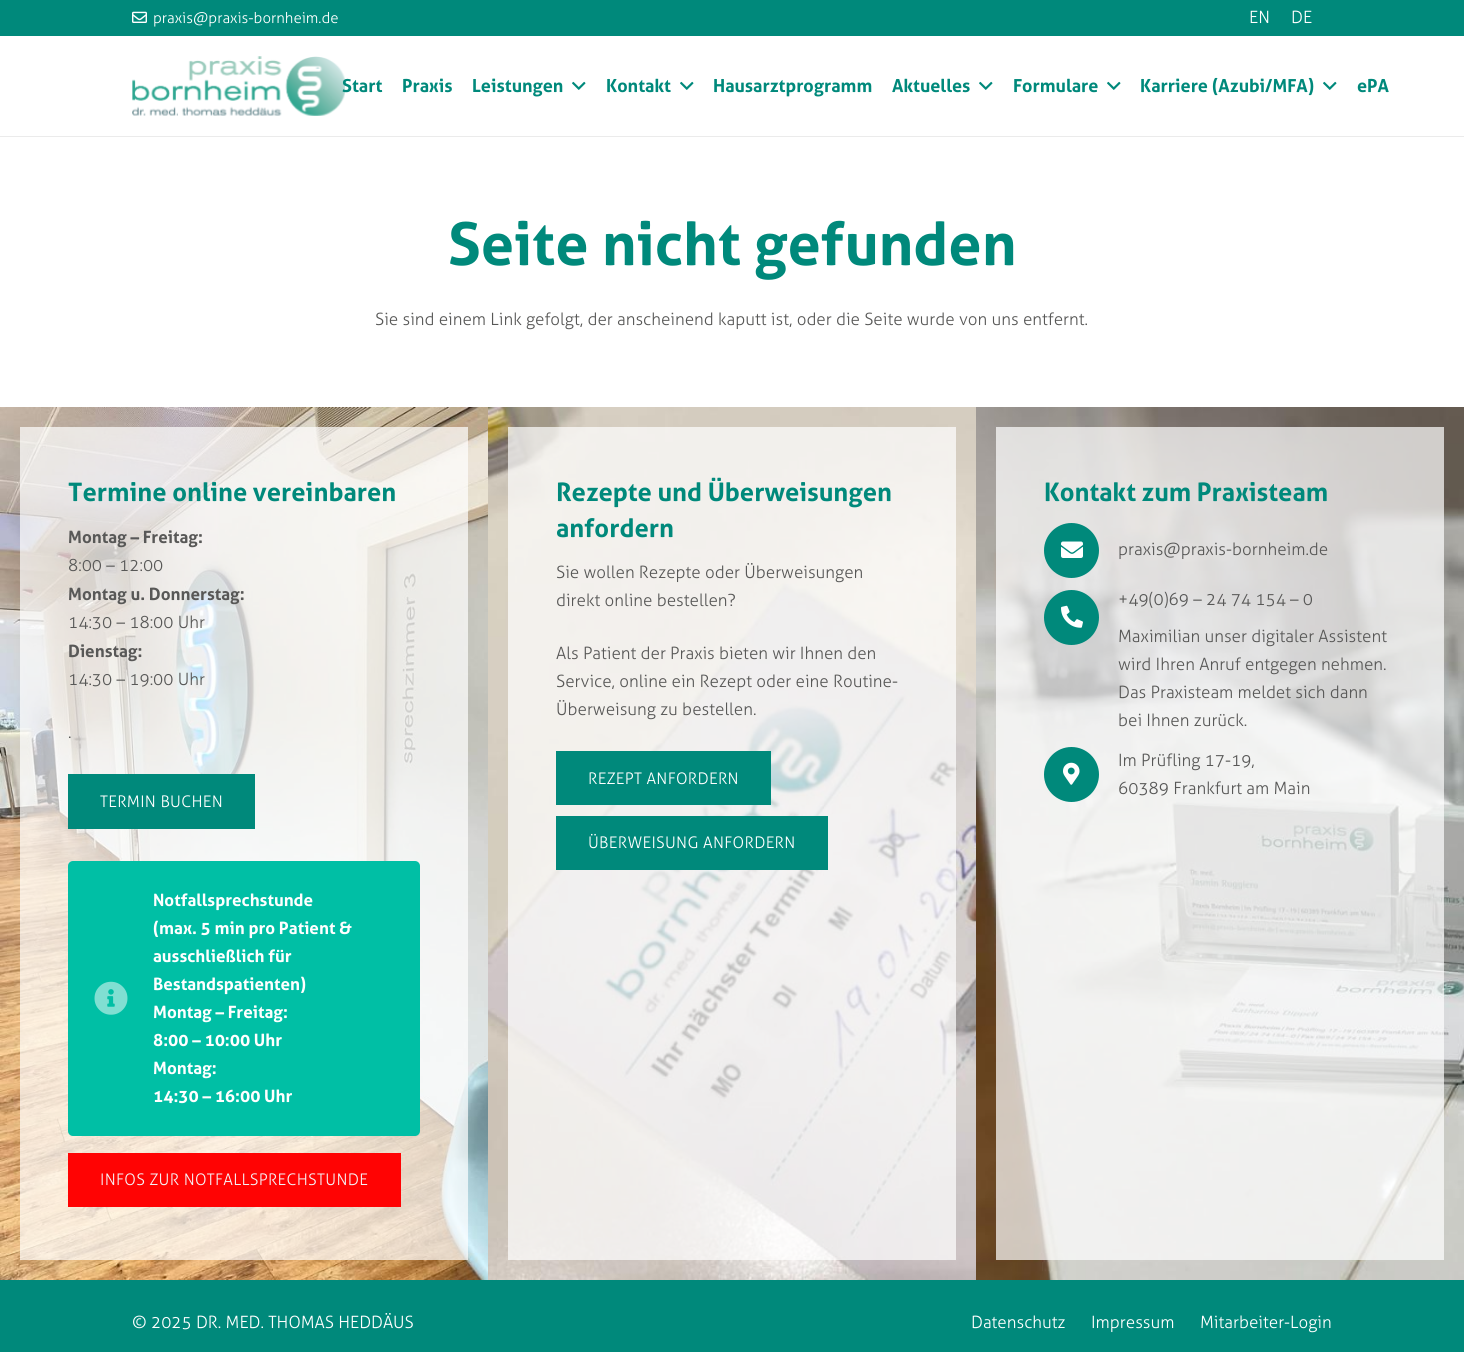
import math
import cairo

surface = cairo.ImageSurface(cairo.FORMAT_RGB24, 1464, 1352)
ctx = cairo.Context(surface)
options = cairo.FontOptions()
options.set_hint_metrics(cairo.HINT_METRICS_OFF)
options.set_hint_style(cairo.HINT_STYLE_NONE)
ctx.set_font_options(options)
ctx.set_miter_limit(4)


def set_color(code):
    ctx.set_source_rgb(*(v / 255 for v in bytes.fromhex(code[-6:])))


def draw_text(x, y, s, family, size, color, bold=False, italic=False):
    ctx.select_font_face(family, cairo.FONT_SLANT_ITALIC if italic else cairo.FONT_SLANT_NORMAL, cairo.FONT_WEIGHT_BOLD if bold else cairo.FONT_WEIGHT_NORMAL)
    ctx.set_font_size(size)
    set_color(color)
    ctx.move_to(x, y)
    ctx.show_text(s)


def draw_spaced(x, y, s, letter, word):
    ctx.move_to(x, y)
    for ch in s:
        ctx.show_text(ch)
        ctx.rel_move_to(letter + word * (ch == ' '), 0)


def fill_rect(x, y, w, h, color):
    set_color(color)
    ctx.rectangle(x, y, w, h)
    ctx.fill()


def rounded_rect(x, y, w, h, r):
    ctx.new_sub_path()
    for i, (u, v) in enumerate([(x + w - r, y + h - r), (x + r, y + h - r), (x + r, y + r), (x + w - r, y + r)]):
        ctx.arc(u, v, r, i * math.pi / 2, (i + 1) * math.pi / 2)
    ctx.close_path()


def draw_image(path, x, y, w, h):
    ctx.save()
    ctx.set_source_surface(cairo.ImageSurface.create_from_png(path), x, y)
    ctx.rectangle(x, y, w, h)
    ctx.fill()
    ctx.restore()


set_color("#ffffff")
ctx.paint()
fill_rect(0, 0, 1464, 36, "#00897b")
draw_image("assets/img1.png", 132, 11, 15, 12)
draw_text(153, 23, "praxis@praxis-bornheim.de", "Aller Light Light", 15, "#ffffff")
draw_text(1249, 23, "EN", "Aller Light Light", 17, "#ffffff")
draw_text(1291, 23, "DE", "Aller Light Light", 17, "#ffffff")
fill_rect(0, 136, 1464, 1, "#ebebeb")
draw_image("assets/img2.png", 132, 56, 213, 60)
draw_text(342, 92, "Start", "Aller", 18, "#00897b", bold=True)
draw_text(402, 92, "Praxis", "Aller", 18, "#00897b", bold=True)
draw_text(472, 92, "Leistungen", "Aller", 18, "#00897b", bold=True)
draw_image("assets/img3.png", 572, 81, 14, 9)
draw_text(606, 92, "Kontakt", "Aller", 18, "#00897b", bold=True)
draw_image("assets/img3.png", 680, 81, 14, 9)
draw_text(713, 92, "Hausarztprogramm", "Aller", 18, "#00897b", bold=True)
draw_text(892, 92, "Aktuelles", "Aller", 18, "#00897b", bold=True)
draw_image("assets/img3.png", 979, 81, 14, 9)
draw_text(1013, 92, "Formulare", "Aller", 18, "#00897b", bold=True)
draw_image("assets/img3.png", 1107, 81, 14, 9)
draw_text(1140, 92, "Karriere (Azubi/MFA)", "Aller", 18, "#00897b", bold=True)
draw_image("assets/img3.png", 1323, 81, 14, 9)
draw_text(1357, 92, "ePA", "Aller", 18, "#00897b", bold=True)
draw_text(448, 265, "Seite nicht gefunden", "Aller", 59.5, "#00897b", bold=True)
draw_text(375, 325, "Sie sind einem Link gefolgt, der anscheinend kaputt ist, oder die Seite wurde von uns entfernt.", "Aller Light Light", 17, "#585857")
draw_image("assets/img4.png", 0, 407, 488, 873)
ctx.set_source_rgba(1, 1, 1, 0.7)
ctx.rectangle(20, 427, 448, 833)
ctx.fill()
draw_text(68, 501, "Termine online vereinbaren", "Aller", 25.5, "#00897b", bold=True)
draw_text(68, 543, "Montag – Freitag:", "Aller", 17, "#585857", bold=True)
draw_text(68, 571, "8:00 – 12:00", "Aller Light Light", 17, "#585857")
draw_text(68, 600, "Montag u. Donnerstag:", "Aller", 17, "#585857", bold=True)
draw_text(68, 628, "14:30 – 18:00 Uhr", "Aller Light Light", 17, "#585857")
draw_text(68, 657, "Dienstag:", "Aller", 17, "#585857", bold=True)
draw_text(68, 685, "14:30 – 19:00 Uhr", "Aller Light Light", 17, "#585857")
draw_text(68, 738, ".", "Aller Light Light", 17, "#585857")
fill_rect(68, 774, 187, 55, "#00897b")
ctx.set_font_size(16)
set_color("#ffffff")
draw_spaced(100, 807, "TERMIN BUCHEN", 0.3, 0)
set_color("#00bfa5")
rounded_rect(68, 861, 352, 275, 5)
ctx.fill()
draw_image("assets/img5.png", 94, 981, 34, 34)
draw_text(153, 906, "Notfallsprechstunde", "Aller", 17, "#ffffff", bold=True)
draw_text(153, 934, "(max. 5 min pro Patient &", "Aller", 17, "#ffffff", bold=True)
draw_text(153, 962, "ausschließlich für", "Aller", 17, "#ffffff", bold=True)
draw_text(153, 990, "Bestandspatienten)", "Aller", 17, "#ffffff", bold=True)
draw_text(153, 1018, "Montag – Freitag:", "Aller", 17, "#ffffff", bold=True)
draw_text(153, 1046, "8:00 – 10:00 Uhr", "Aller", 17, "#ffffff", bold=True)
draw_text(153, 1074, "Montag:", "Aller", 17, "#ffffff", bold=True)
draw_text(153, 1102, "14:30 – 16:00 Uhr", "Aller", 17, "#ffffff", bold=True)
fill_rect(68, 1153, 333, 54, "#ff0303")
ctx.select_font_face("Aller Light Light")
ctx.set_font_size(16)
set_color("#f5f2f5")
draw_spaced(100, 1185, "INFOS ZUR NOTFALLSPRECHSTUNDE", 0.3, 0)
draw_image("assets/img6.png", 488, 407, 488, 873)
ctx.set_source_rgba(1, 1, 1, 0.7)
ctx.rectangle(508, 427, 448, 833)
ctx.fill()
draw_text(556, 501, "Rezepte und Überweisungen", "Aller", 25.5, "#00897b", bold=True)
draw_text(556, 537, "anfordern", "Aller", 25.5, "#00897b", bold=True)
draw_text(556, 578, "Sie wollen Rezepte oder Überweisungen", "Aller Light Light", 17, "#585857")
draw_text(556, 606, "direkt online bestellen?", "Aller Light Light", 17, "#585857")
draw_text(556, 659, "Als Patient der Praxis bieten wir Ihnen den", "Aller Light Light", 17, "#585857")
draw_text(556, 687, "Service, online ein Rezept oder eine Routine-", "Aller Light Light", 17, "#585857")
draw_text(556, 715, "Überweisung zu bestellen.", "Aller Light Light", 17, "#585857")
fill_rect(556, 751, 215, 54, "#00897b")
ctx.set_font_size(16)
set_color("#ffffff")
draw_spaced(588, 784, "REZEPT ANFORDERN", 0.3, 0)
fill_rect(556, 816, 272, 54, "#00897b")
set_color("#ffffff")
draw_spaced(588, 848, "ÜBERWEISUNG ANFORDERN", 0.3, 0)
draw_image("assets/img7.png", 976, 407, 488, 873)
ctx.set_source_rgba(1, 1, 1, 0.7)
ctx.rectangle(996, 427, 448, 833)
ctx.fill()
draw_text(1044, 501, "Kontakt zum Praxisteam", "Aller", 25.5, "#00897b", bold=True)
ctx.new_path()
ctx.arc(1071.5, 550.5, 27.5, 0, 2 * math.pi)
ctx.fill()
draw_image("assets/img8.png", 1061, 541, 22, 17)
draw_text(1118, 555, "praxis@praxis-bornheim.de", "Aller Light Light", 17, "#585857")
set_color("#00897b")
ctx.new_path()
ctx.arc(1071.5, 617.5, 27.5, 0, 2 * math.pi)
ctx.fill()
draw_image("assets/img9.png", 1061, 605, 22, 23)
draw_text(1118, 605, "+49(0)69 – 24 74 154 – 0", "Aller Light Light", 17, "#585857")
draw_text(1118, 642, "Maximilian unser digitaler Assistent", "Aller Light Light", 17, "#585857")
draw_text(1118, 670, "wird Ihren Anruf entgegen nehmen.", "Aller Light Light", 17, "#585857")
draw_text(1118, 698, "Das Praxisteam meldet sich dann", "Aller Light Light", 17, "#585857")
draw_text(1118, 726, "bei Ihnen zurück.", "Aller Light Light", 17, "#585857")
set_color("#00897b")
ctx.new_path()
ctx.arc(1071.5, 774.5, 27.5, 0, 2 * math.pi)
ctx.fill()
draw_image("assets/img10.png", 1063, 762, 17, 23)
draw_text(1118, 766, "Im Prüfling 17-19,", "Aller Light Light", 17, "#585857")
draw_text(1118, 794, "60389 Frankfurt am Main", "Aller Light Light", 17, "#585857")
fill_rect(0, 1280, 1464, 72, "#00897b")
draw_text(132, 1328, "© 2025 DR. MED. THOMAS HEDDÄUS", "Aller Light Light", 17, "#ffffff")
draw_text(971, 1328, "Datenschutz", "Aller Light Light", 17, "#ffffff")
draw_text(1091, 1328, "Impressum", "Aller Light Light", 17, "#ffffff")
draw_text(1200, 1328, "Mitarbeiter-Login", "Aller Light Light", 17, "#ffffff")
surface.write_to_png("output.png")
